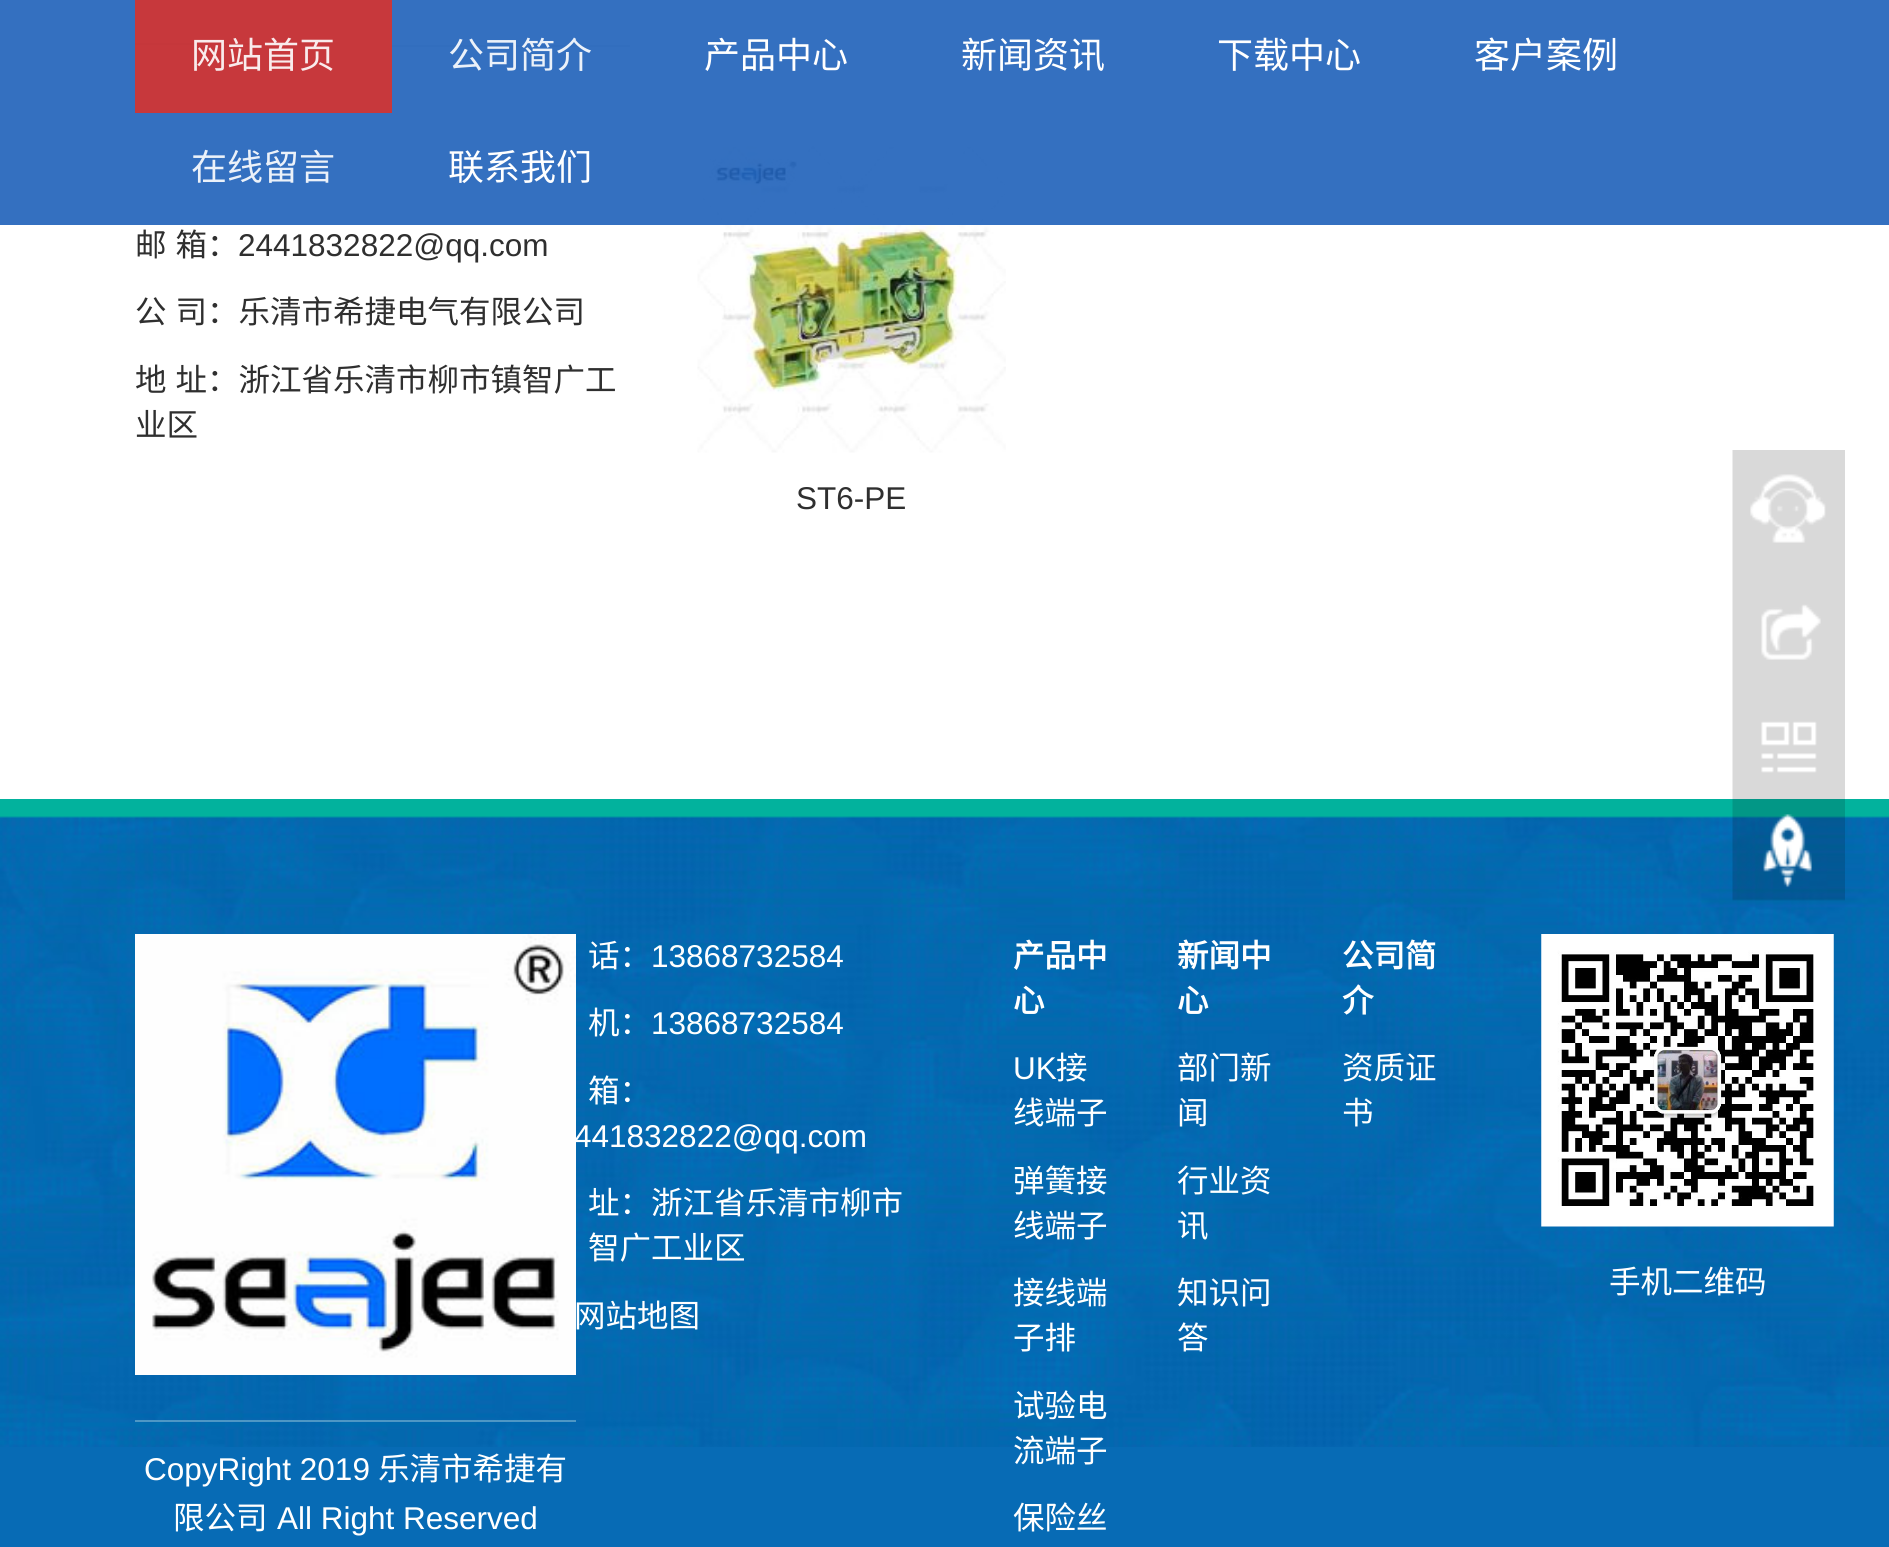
import math
import cairo

surface = cairo.ImageSurface(cairo.FORMAT_RGB24, 1889, 1547)
ctx = cairo.Context(surface)
options = cairo.FontOptions()
options.set_hint_metrics(cairo.HINT_METRICS_OFF)
options.set_hint_style(cairo.HINT_STYLE_NONE)
ctx.set_font_options(options)
ctx.set_miter_limit(4)


def set_color(code):
    ctx.set_source_rgb(*(v / 255 for v in bytes.fromhex(code[-6:])))


def draw_text(x, y, s, family, size, color, bold=False, italic=False):
    ctx.select_font_face(family, cairo.FONT_SLANT_ITALIC if italic else cairo.FONT_SLANT_NORMAL, cairo.FONT_WEIGHT_BOLD if bold else cairo.FONT_WEIGHT_NORMAL)
    ctx.set_font_size(size)
    set_color(color)
    ctx.move_to(x, y)
    ctx.show_text(s)


def draw_spaced(x, y, s, letter, word):
    ctx.move_to(x, y)
    for ch in s:
        ctx.show_text(ch)
        ctx.rel_move_to(letter + word * (ch == ' '), 0)


def fill_rect(x, y, w, h, color):
    set_color(color)
    ctx.rectangle(x, y, w, h)
    ctx.fill()


def draw_image(path, x, y, w, h):
    ctx.save()
    ctx.set_source_surface(cairo.ImageSurface.create_from_png(path), x, y)
    ctx.rectangle(x, y, w, h)
    ctx.fill()
    ctx.restore()


set_color("#ffffff")
ctx.paint()
fill_rect(135, 45, 495, 2, "#ebebeb")
fill_rect(135, 43, 198, 2, "#02b29c")
draw_image("assets/img1.png", 697, 146, 309, 307)
ctx.set_source_rgba(0.118, 0.38, 0.729, 0.9)
ctx.rectangle(0, 0, 1889, 225)
ctx.fill()
ctx.set_source_rgba(0.843, 0.196, 0.18, 0.9)
ctx.rectangle(135, 0, 257, 113)
ctx.fill()
draw_text(191, 68, "网站首页", "Noto Sans CJK SC", 36, "#f9ebec")
draw_text(448, 68, "公司简介", "Noto Sans CJK SC", 36, "#ebf1f9")
draw_text(704, 68, "产品中心", "Noto Sans CJK SC", 36, "#ffffff")
draw_text(961, 68, "新闻资讯", "Noto Sans CJK SC", 36, "#ffffff")
draw_text(1217, 68, "下载中心", "Noto Sans CJK SC", 36, "#ffffff")
draw_text(1474, 68, "客户案例", "Noto Sans CJK SC", 36, "#ffffff")
draw_text(191, 180, "在线留言", "Noto Sans CJK SC", 36, "#ebf1f9")
draw_text(448, 180, "联系我们", "Noto Sans CJK SC", 36, "#ffffff")
ctx.set_font_size(31.5)
set_color("#2f2f2f")
draw_spaced(135, 256, "邮 箱：", 0, 2)
draw_text(238, 256, "2441832822@qq.com", "Liberation Sans", 31.5, "#2f2f2f")
ctx.select_font_face("Noto Sans CJK SC")
draw_spaced(135, 323, "公 司：乐清市希捷电气有限公司", 0, 2)
draw_spaced(135, 391, "地 址：浙江省乐清市柳市镇智广工", 0, 2)
draw_text(135, 436, "业区", "Noto Sans CJK SC", 31.5, "#2f2f2f")
draw_text(796, 509, "ST6-PE", "Liberation Sans", 31.5, "#2f2f2f")
draw_image("assets/img3.png", 0, 799, 1889, 648)
draw_image("assets/img2.png", 1732, 450, 113, 451)
fill_rect(0, 1447, 1889, 100, "#076bb5")
draw_text(588, 967, "话：", "Noto Sans CJK SC", 31.5, "#ffffff")
draw_text(651, 967, "13868732584", "Liberation Sans", 31.5, "#ffffff")
draw_text(588, 1034, "机：", "Noto Sans CJK SC", 31.5, "#ffffff")
draw_text(651, 1034, "13868732584", "Liberation Sans", 31.5, "#ffffff")
draw_text(588, 1102, "箱：", "Noto Sans CJK SC", 31.5, "#ffffff")
draw_image("assets/img5.png", 135, 934, 441, 441)
draw_text(574, 1147, "441832822@qq.com", "Liberation Sans", 31.5, "#ffffff")
draw_text(588, 1214, "址：浙江省乐清市柳市", "Noto Sans CJK SC", 31.5, "#ffffff")
draw_text(588, 1259, "智广工业区", "Noto Sans CJK SC", 31.5, "#ffffff")
draw_text(574, 1327, "网站地图", "Noto Sans CJK SC", 31.5, "#ffffff")
draw_text(1013, 967, "产品中", "Noto Sans CJK SC", 31.5, "#ffffff", bold=True)
draw_text(1013, 1012, "心", "Noto Sans CJK SC", 31.5, "#ffffff", bold=True)
draw_text(1013, 1079, "UK", "Liberation Sans", 31.5, "#ffffff")
draw_text(1056, 1079, "接", "Noto Sans CJK SC", 31.5, "#ffffff")
draw_text(1013, 1124, "线端子", "Noto Sans CJK SC", 31.5, "#ffffff")
draw_text(1013, 1192, "弹簧接", "Noto Sans CJK SC", 31.5, "#ffffff")
draw_text(1013, 1237, "线端子", "Noto Sans CJK SC", 31.5, "#ffffff")
draw_text(1013, 1304, "接线端", "Noto Sans CJK SC", 31.5, "#ffffff")
draw_text(1013, 1349, "子排", "Noto Sans CJK SC", 31.5, "#ffffff")
draw_text(1013, 1417, "试验电", "Noto Sans CJK SC", 31.5, "#ffffff")
draw_text(1013, 1462, "流端子", "Noto Sans CJK SC", 31.5, "#ffffff")
draw_text(1013, 1529, "保险丝", "Noto Sans CJK SC", 31.5, "#ffffff")
draw_text(1177, 967, "新闻中", "Noto Sans CJK SC", 31.5, "#ffffff", bold=True)
draw_text(1177, 1012, "心", "Noto Sans CJK SC", 31.5, "#ffffff", bold=True)
draw_text(1177, 1079, "部门新", "Noto Sans CJK SC", 31.5, "#ffffff")
draw_text(1177, 1124, "闻", "Noto Sans CJK SC", 31.5, "#ffffff")
draw_text(1177, 1192, "行业资", "Noto Sans CJK SC", 31.5, "#ffffff")
draw_text(1177, 1237, "讯", "Noto Sans CJK SC", 31.5, "#ffffff")
draw_text(1177, 1304, "知识问", "Noto Sans CJK SC", 31.5, "#ffffff")
draw_text(1177, 1349, "答", "Noto Sans CJK SC", 31.5, "#ffffff")
draw_text(1342, 967, "公司简", "Noto Sans CJK SC", 31.5, "#ffffff", bold=True)
draw_text(1342, 1012, "介", "Noto Sans CJK SC", 31.5, "#ffffff", bold=True)
draw_text(1342, 1079, "资质证", "Noto Sans CJK SC", 31.5, "#ffffff")
draw_text(1342, 1124, "书", "Noto Sans CJK SC", 31.5, "#ffffff")
draw_image("assets/img4.png", 1541, 934, 293, 293)
draw_text(1609, 1293, "手机二维码", "Noto Sans CJK SC", 31.5, "#ffffff")
fill_rect(135, 1420, 441, 2, "#4e97c5")
draw_text(144, 1480, "CopyRight 2019", "Liberation Sans", 31.5, "#ffffff")
draw_text(378, 1480, "乐清市希捷有", "Noto Sans CJK SC", 31.5, "#ffffff")
draw_text(173, 1529, "限公司", "Noto Sans CJK SC", 31.5, "#ffffff")
draw_text(277, 1529, "All Right Reserved", "Liberation Sans", 31.5, "#ffffff")
surface.write_to_png("output.png")
